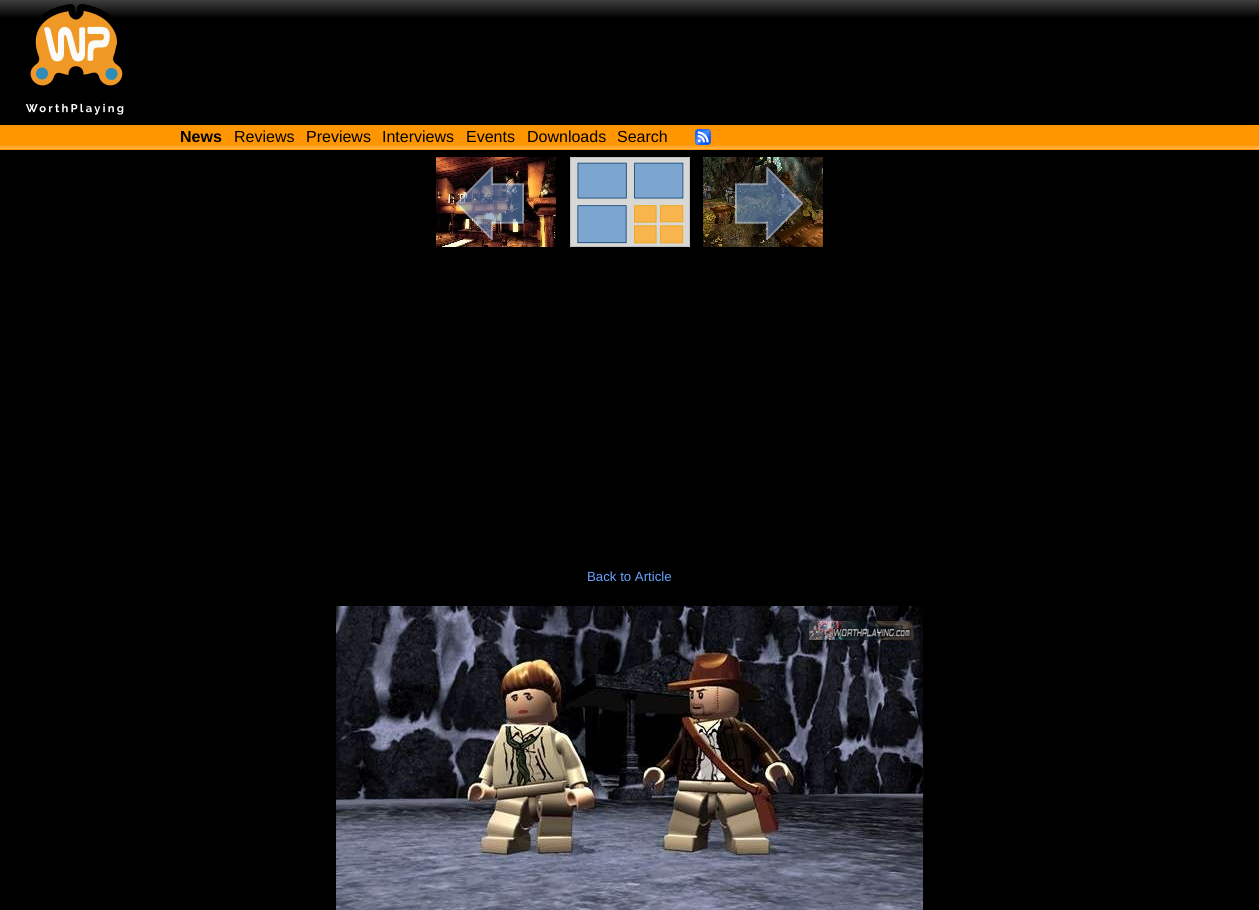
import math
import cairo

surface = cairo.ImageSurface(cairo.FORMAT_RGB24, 1259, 910)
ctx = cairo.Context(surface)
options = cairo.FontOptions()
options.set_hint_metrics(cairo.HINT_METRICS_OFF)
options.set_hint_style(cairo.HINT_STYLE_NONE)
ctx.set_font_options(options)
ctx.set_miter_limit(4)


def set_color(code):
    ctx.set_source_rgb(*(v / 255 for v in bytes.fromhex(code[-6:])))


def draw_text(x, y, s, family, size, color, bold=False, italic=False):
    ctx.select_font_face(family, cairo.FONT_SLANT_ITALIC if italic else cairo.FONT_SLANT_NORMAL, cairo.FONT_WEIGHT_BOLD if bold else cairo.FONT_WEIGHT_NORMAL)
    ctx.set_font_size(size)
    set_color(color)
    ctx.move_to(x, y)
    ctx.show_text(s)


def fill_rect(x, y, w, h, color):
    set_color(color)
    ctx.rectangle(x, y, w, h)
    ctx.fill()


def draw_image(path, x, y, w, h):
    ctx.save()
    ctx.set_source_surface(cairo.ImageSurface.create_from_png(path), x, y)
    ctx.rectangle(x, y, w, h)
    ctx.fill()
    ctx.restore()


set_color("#000000")
ctx.paint()
draw_image("assets/img1.png", 0, 0, 1259, 17)
draw_image("assets/img2.png", 25, 4, 99, 111)
fill_rect(0, 125, 1259, 25, "#ff9600")
draw_image("assets/img3.png", 0, 145, 1259, 4)
draw_text(180, 142, "News", "Liberation Sans", 16, "#000000", bold=True)
draw_text(234, 142, "Reviews", "Liberation Sans", 16, "#000000")
draw_text(306, 142, "Previews", "Liberation Sans", 16, "#000000")
draw_text(382, 142, "Interviews", "Liberation Sans", 16, "#000000")
draw_text(466, 142, "Events", "Liberation Sans", 16, "#000000")
draw_text(527, 142, "Downloads", "Liberation Sans", 16, "#000000")
draw_text(617, 142, "Search", "Liberation Sans", 16, "#000000")
draw_image("assets/img4.png", 695, 129, 16, 16)
draw_image("assets/img5.png", 436, 157, 120, 90)
draw_image("assets/img6.png", 456, 167, 68, 73)
draw_image("assets/img7.png", 570, 157, 120, 90)
draw_image("assets/img8.png", 703, 157, 120, 90)
draw_image("assets/img9.png", 735, 167, 68, 73)
draw_text(587, 581, "Back to Article", "Liberation Sans", 13.25, "#66a3ff")
draw_image("assets/img10.png", 336, 606, 588, 304)
surface.write_to_png("output.png")
